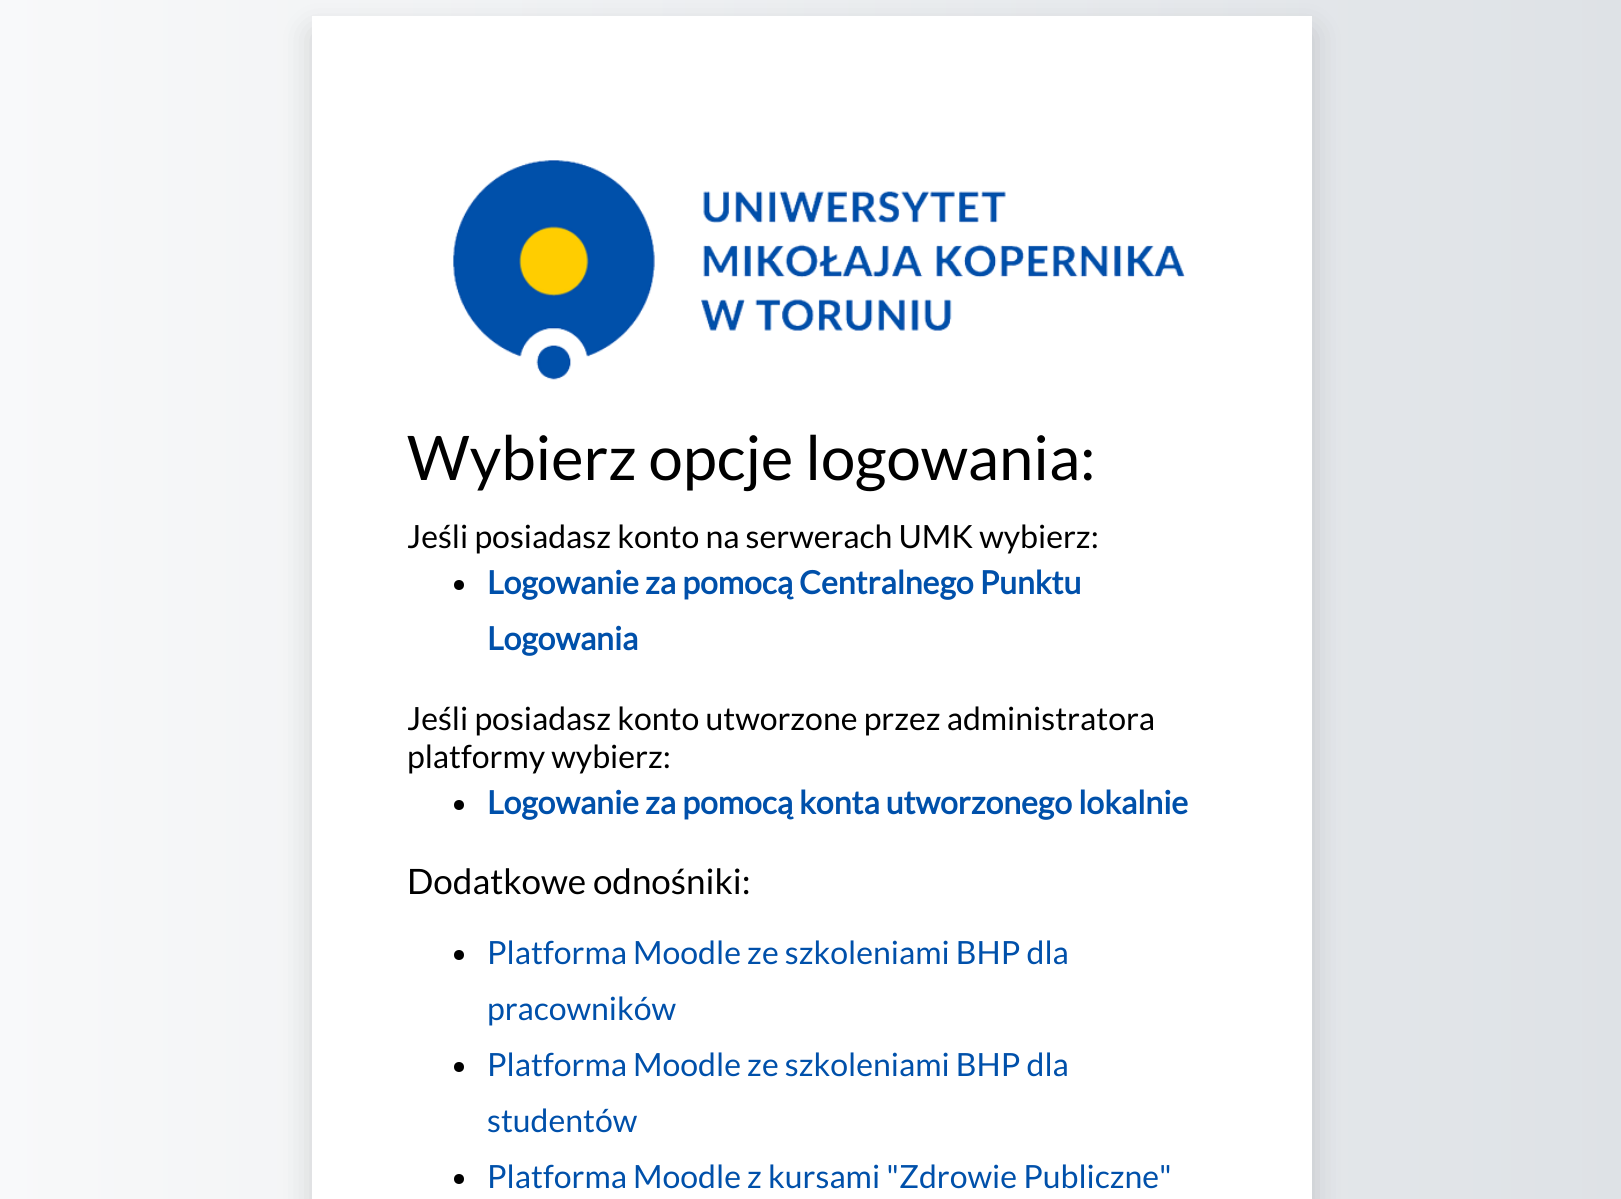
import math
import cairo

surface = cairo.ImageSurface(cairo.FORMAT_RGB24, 1621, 1199)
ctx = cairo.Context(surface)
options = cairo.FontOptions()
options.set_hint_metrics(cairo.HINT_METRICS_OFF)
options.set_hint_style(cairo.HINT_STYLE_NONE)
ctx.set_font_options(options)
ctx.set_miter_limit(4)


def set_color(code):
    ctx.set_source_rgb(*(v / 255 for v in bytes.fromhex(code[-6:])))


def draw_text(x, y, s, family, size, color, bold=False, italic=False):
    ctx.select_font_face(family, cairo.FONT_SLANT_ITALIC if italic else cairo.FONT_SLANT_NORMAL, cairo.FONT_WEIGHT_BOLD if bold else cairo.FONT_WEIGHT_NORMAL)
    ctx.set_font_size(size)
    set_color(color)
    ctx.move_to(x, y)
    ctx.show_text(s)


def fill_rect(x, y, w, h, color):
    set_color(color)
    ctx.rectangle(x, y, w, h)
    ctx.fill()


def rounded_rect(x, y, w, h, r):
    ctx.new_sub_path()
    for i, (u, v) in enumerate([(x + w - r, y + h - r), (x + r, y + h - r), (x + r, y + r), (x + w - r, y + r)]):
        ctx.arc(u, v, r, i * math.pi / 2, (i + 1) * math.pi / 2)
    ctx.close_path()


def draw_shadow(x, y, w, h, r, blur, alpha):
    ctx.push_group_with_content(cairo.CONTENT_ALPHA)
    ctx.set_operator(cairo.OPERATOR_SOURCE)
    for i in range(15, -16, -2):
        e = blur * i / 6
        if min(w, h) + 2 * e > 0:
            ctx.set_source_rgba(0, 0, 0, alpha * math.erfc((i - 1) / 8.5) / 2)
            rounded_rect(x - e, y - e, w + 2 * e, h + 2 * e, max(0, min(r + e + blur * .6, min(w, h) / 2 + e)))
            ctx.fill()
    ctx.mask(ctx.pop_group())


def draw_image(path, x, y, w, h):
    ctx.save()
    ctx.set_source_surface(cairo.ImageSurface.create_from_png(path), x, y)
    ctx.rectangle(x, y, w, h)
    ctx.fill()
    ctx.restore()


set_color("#ffffff")
ctx.paint()
gradient = cairo.LinearGradient(0, 714, 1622, 714)
gradient.add_color_stop_rgba(0, 0.973, 0.976, 0.98, 1)
gradient.add_color_stop_rgba(1, 0.871, 0.886, 0.902, 1)
ctx.set_source(gradient)
ctx.rectangle(0, 0, 1621, 1199)
ctx.fill()
set_color("#000000")
draw_shadow(312, 32, 1000, 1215, 0, 16, 0.15)
fill_rect(312, 16, 1000, 1183, "#ffffff")
draw_image("assets/img1.png", 453, 160, 732, 220)
draw_text(407, 480, "Wybierz opcje logowania:", "Lato", 61.5, "#000000")
draw_text(407, 548, "Jeśli posiadasz konto na serwerach UMK wybierz:", "Lato", 32, "#000000")
ctx.new_path()
ctx.arc(459, 585, 5, 0, 2 * math.pi)
ctx.fill()
draw_text(487, 594, "Logowanie za pomocą Centralnego Punktu", "Lato", 32, "#0050aa", bold=True)
draw_text(487, 650, "Logowania", "Lato", 32, "#0050aa", bold=True)
draw_text(407, 730, "Jeśli posiadasz konto utworzone przez administratora", "Lato", 32, "#000000")
draw_text(407, 768, "platformy wybierz:", "Lato", 32, "#000000")
ctx.new_path()
ctx.arc(459, 805, 5, 0, 2 * math.pi)
ctx.fill()
draw_text(487, 814, "Logowanie za pomocą konta utworzonego lokalnie", "Lato", 32, "#0050aa", bold=True)
draw_text(407, 894, "Dodatkowe odnośniki:", "Lato", 35, "#000000")
ctx.new_path()
ctx.arc(459, 955, 5, 0, 2 * math.pi)
ctx.fill()
draw_text(487, 964, "Platforma Moodle ze szkoleniami BHP dla", "Lato", 32, "#0050aa")
draw_text(487, 1020, "pracowników", "Lato", 32, "#0050aa")
set_color("#000000")
ctx.new_path()
ctx.arc(459, 1067, 5, 0, 2 * math.pi)
ctx.fill()
draw_text(487, 1076, "Platforma Moodle ze szkoleniami BHP dla", "Lato", 32, "#0050aa")
draw_text(487, 1132, "studentów", "Lato", 32, "#0050aa")
set_color("#000000")
ctx.new_path()
ctx.arc(459, 1179, 5, 0, 2 * math.pi)
ctx.fill()
draw_text(487, 1188, "Platforma Moodle z kursami \"Zdrowie Publiczne\"", "Lato", 32, "#0050aa")
surface.write_to_png("output.png")
